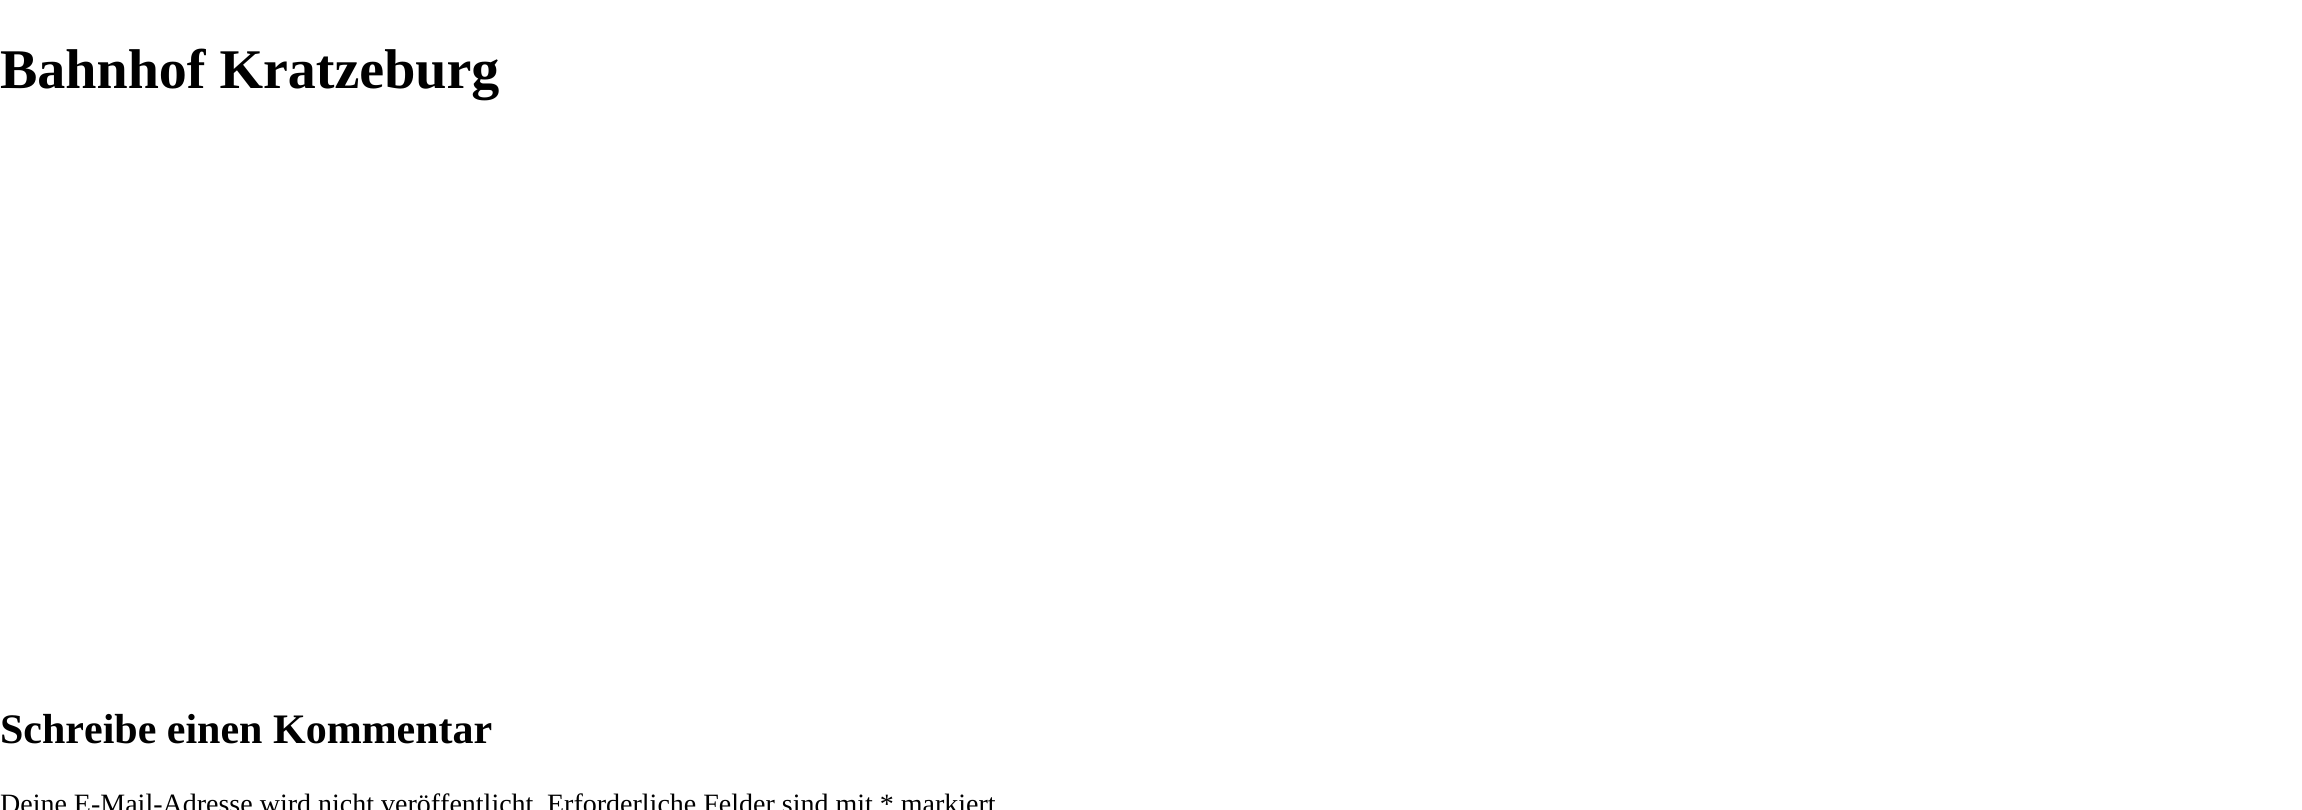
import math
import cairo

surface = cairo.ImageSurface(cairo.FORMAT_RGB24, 2302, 810)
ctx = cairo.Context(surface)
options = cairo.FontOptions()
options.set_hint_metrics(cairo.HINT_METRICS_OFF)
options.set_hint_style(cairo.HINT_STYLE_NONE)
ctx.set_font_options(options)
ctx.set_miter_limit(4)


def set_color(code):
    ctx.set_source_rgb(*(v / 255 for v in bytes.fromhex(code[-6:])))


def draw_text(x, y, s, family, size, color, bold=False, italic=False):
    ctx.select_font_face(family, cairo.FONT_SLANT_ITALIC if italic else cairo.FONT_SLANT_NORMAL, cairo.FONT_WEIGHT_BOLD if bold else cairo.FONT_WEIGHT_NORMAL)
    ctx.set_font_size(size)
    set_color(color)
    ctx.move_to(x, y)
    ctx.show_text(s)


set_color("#ffffff")
ctx.paint()
draw_text(0, 88, "Bahnhof Kratzeburg", "Liberation Serif", 56, "#000000", bold=True)
draw_text(0, 743, "Schreibe einen Kommentar", "Liberation Serif", 42, "#000000", bold=True)
draw_text(0, 813, "Deine E-Mail-Adresse wird nicht veröffentlicht", "Liberation Serif", 28, "#000000")
draw_text(547, 813, "Erforderliche Felder sind mit * markiert", "Liberation Serif", 28, "#000000")
surface.write_to_png("output.png")
